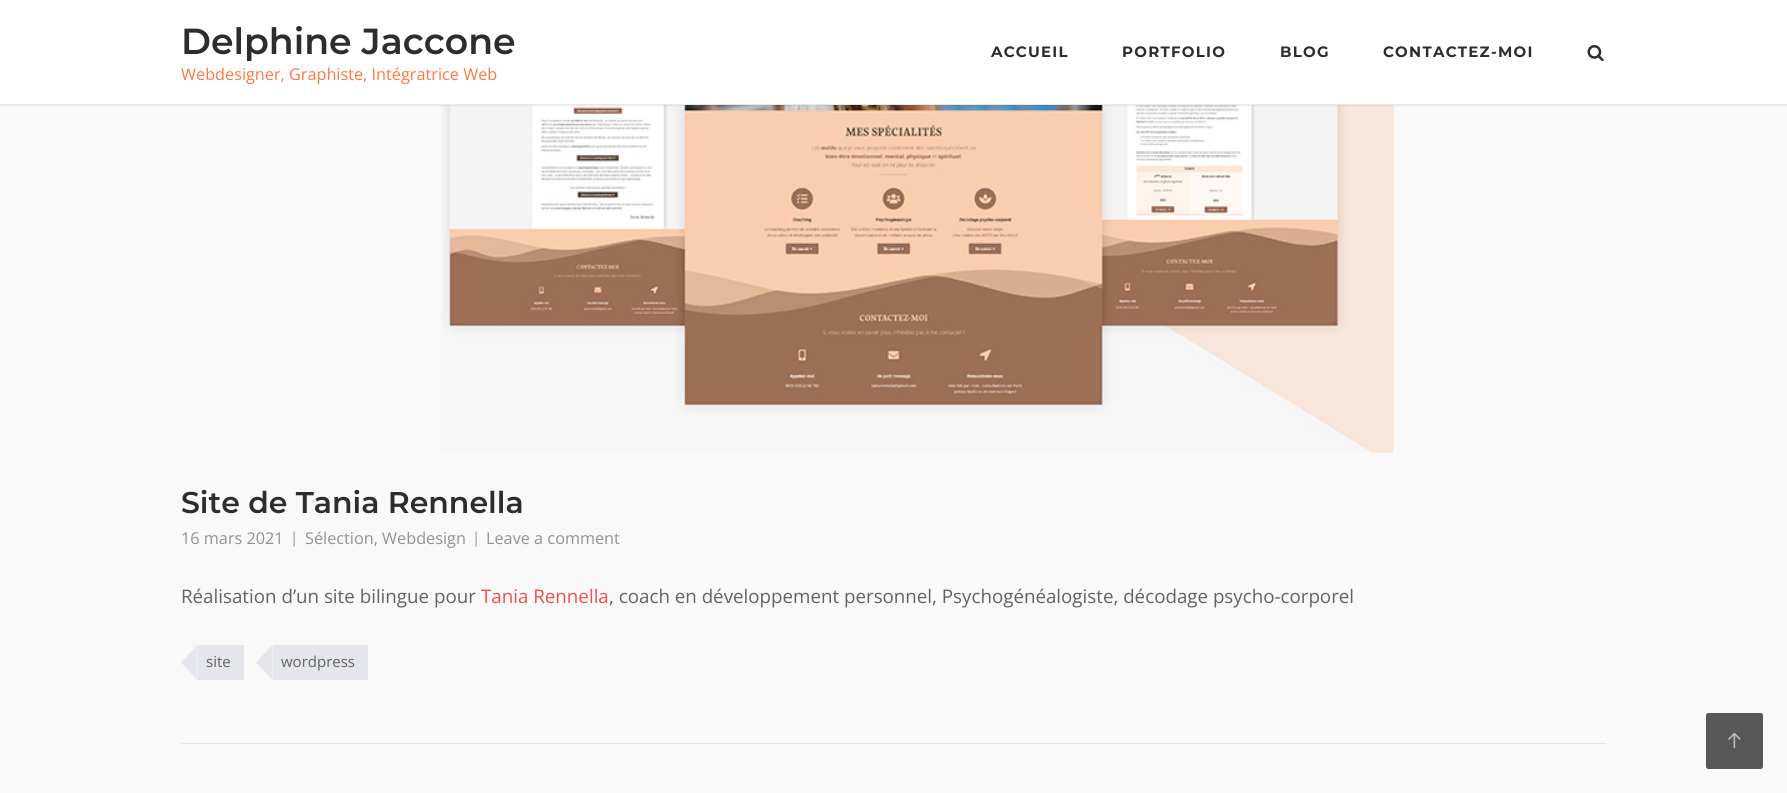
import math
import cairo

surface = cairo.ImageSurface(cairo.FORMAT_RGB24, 1787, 793)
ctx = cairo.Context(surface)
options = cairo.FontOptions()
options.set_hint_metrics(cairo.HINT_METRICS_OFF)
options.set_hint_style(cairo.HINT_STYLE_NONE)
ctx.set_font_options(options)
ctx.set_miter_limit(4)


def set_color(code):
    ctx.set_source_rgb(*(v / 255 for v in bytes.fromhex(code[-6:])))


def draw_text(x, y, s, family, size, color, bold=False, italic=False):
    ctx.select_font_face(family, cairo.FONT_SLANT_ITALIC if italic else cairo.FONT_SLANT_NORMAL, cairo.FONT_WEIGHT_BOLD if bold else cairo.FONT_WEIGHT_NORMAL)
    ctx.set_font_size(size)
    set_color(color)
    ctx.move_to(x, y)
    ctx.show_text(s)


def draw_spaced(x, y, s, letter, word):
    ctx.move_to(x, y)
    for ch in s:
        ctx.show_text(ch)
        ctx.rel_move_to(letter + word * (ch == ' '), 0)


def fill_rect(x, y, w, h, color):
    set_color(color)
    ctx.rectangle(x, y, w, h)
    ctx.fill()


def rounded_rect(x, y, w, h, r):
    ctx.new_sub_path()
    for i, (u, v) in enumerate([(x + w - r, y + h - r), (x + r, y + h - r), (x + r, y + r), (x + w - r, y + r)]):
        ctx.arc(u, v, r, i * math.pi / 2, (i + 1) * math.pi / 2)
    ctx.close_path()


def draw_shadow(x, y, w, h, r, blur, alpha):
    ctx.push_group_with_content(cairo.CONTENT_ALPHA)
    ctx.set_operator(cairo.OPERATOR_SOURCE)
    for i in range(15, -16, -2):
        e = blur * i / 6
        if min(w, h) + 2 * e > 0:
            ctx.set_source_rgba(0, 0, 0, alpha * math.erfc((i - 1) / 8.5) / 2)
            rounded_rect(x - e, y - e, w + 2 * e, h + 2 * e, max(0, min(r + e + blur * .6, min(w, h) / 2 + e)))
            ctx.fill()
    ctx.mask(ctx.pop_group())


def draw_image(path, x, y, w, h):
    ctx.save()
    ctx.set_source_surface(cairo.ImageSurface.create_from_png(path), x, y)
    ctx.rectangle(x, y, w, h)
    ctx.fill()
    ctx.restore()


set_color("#f9f9f9")
ctx.paint()
draw_image("assets/img2.png", 441, 105, 953, 348)
set_color("#000000")
draw_shadow(0, 1, 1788, 105, 0, 0.5, 0.07)
fill_rect(0, 0, 1787, 104, "#ffffff")
fill_rect(0, 104, 1, 1, "#e6e6e6")
draw_text(181, 54, "Delphine Jaccone", "Montserrat SemiBold", 36.25, "#2d2d2d")
draw_text(181, 80, "Webdesigner, Graphiste, Intégratrice Web", "Open Sans", 16.25, "#ff7744")
ctx.select_font_face("Montserrat", cairo.FONT_SLANT_NORMAL, cairo.FONT_WEIGHT_BOLD)
ctx.set_font_size(15)
set_color("#2d2d2d")
draw_spaced(991, 57, "ACCUEIL", 1.25, 0)
draw_spaced(1122, 57, "PORTFOLIO", 1.25, 0)
draw_spaced(1280, 57, "BLOG", 1.25, 0)
draw_spaced(1383, 57, "CONTACTEZ-MOI", 1.25, 0)
draw_image("assets/img1.png", 1587, 45, 17, 16)
draw_text(181, 513, "Site de Tania Rennella", "Montserrat SemiBold", 30, "#2d2d2d")
draw_text(181, 544, "16 mars 2021", "Open Sans", 16.25, "#929292")
draw_text(290, 543, "|", "Open Sans", 15, "#929292")
draw_text(305, 544, "Sélection, Webdesign", "Open Sans", 16.25, "#929292")
draw_text(472, 543, "|", "Open Sans", 15, "#929292")
draw_text(486, 544, "Leave a comment", "Open Sans", 16.25, "#929292")
draw_text(181, 603, "Réalisation d’un site bilingue pour", "Open Sans", 18.75, "#626262")
draw_text(481, 603, "Tania Rennella", "Open Sans", 18.75, "#f14e4e")
draw_text(609, 603, ", coach en développement personnel, Psychogénéalogiste, décodage psycho-corporel", "Open Sans", 18.75, "#626262")
fill_rect(198, 645, 46, 35, "#e4e6eb")
ctx.new_path()
ctx.move_to(197.5, 645)
ctx.line_to(197.5, 680)
ctx.line_to(181, 662.5)
ctx.close_path()
ctx.fill()
draw_text(206, 667, "site", "Open Sans", 15, "#626262")
fill_rect(273, 645, 95, 35, "#e4e6eb")
ctx.new_path()
ctx.move_to(272.5, 645)
ctx.line_to(272.5, 680)
ctx.line_to(256, 662.5)
ctx.close_path()
ctx.fill()
draw_text(281, 667, "wordpress", "Open Sans", 15, "#626262")
fill_rect(181, 743, 1425, 1, "#e6e6e6")
set_color("#575757")
rounded_rect(1706, 713, 57, 56, 2.5)
ctx.fill()
draw_image("assets/img3.png", 1728, 732, 13, 17)
surface.write_to_png("output.png")
